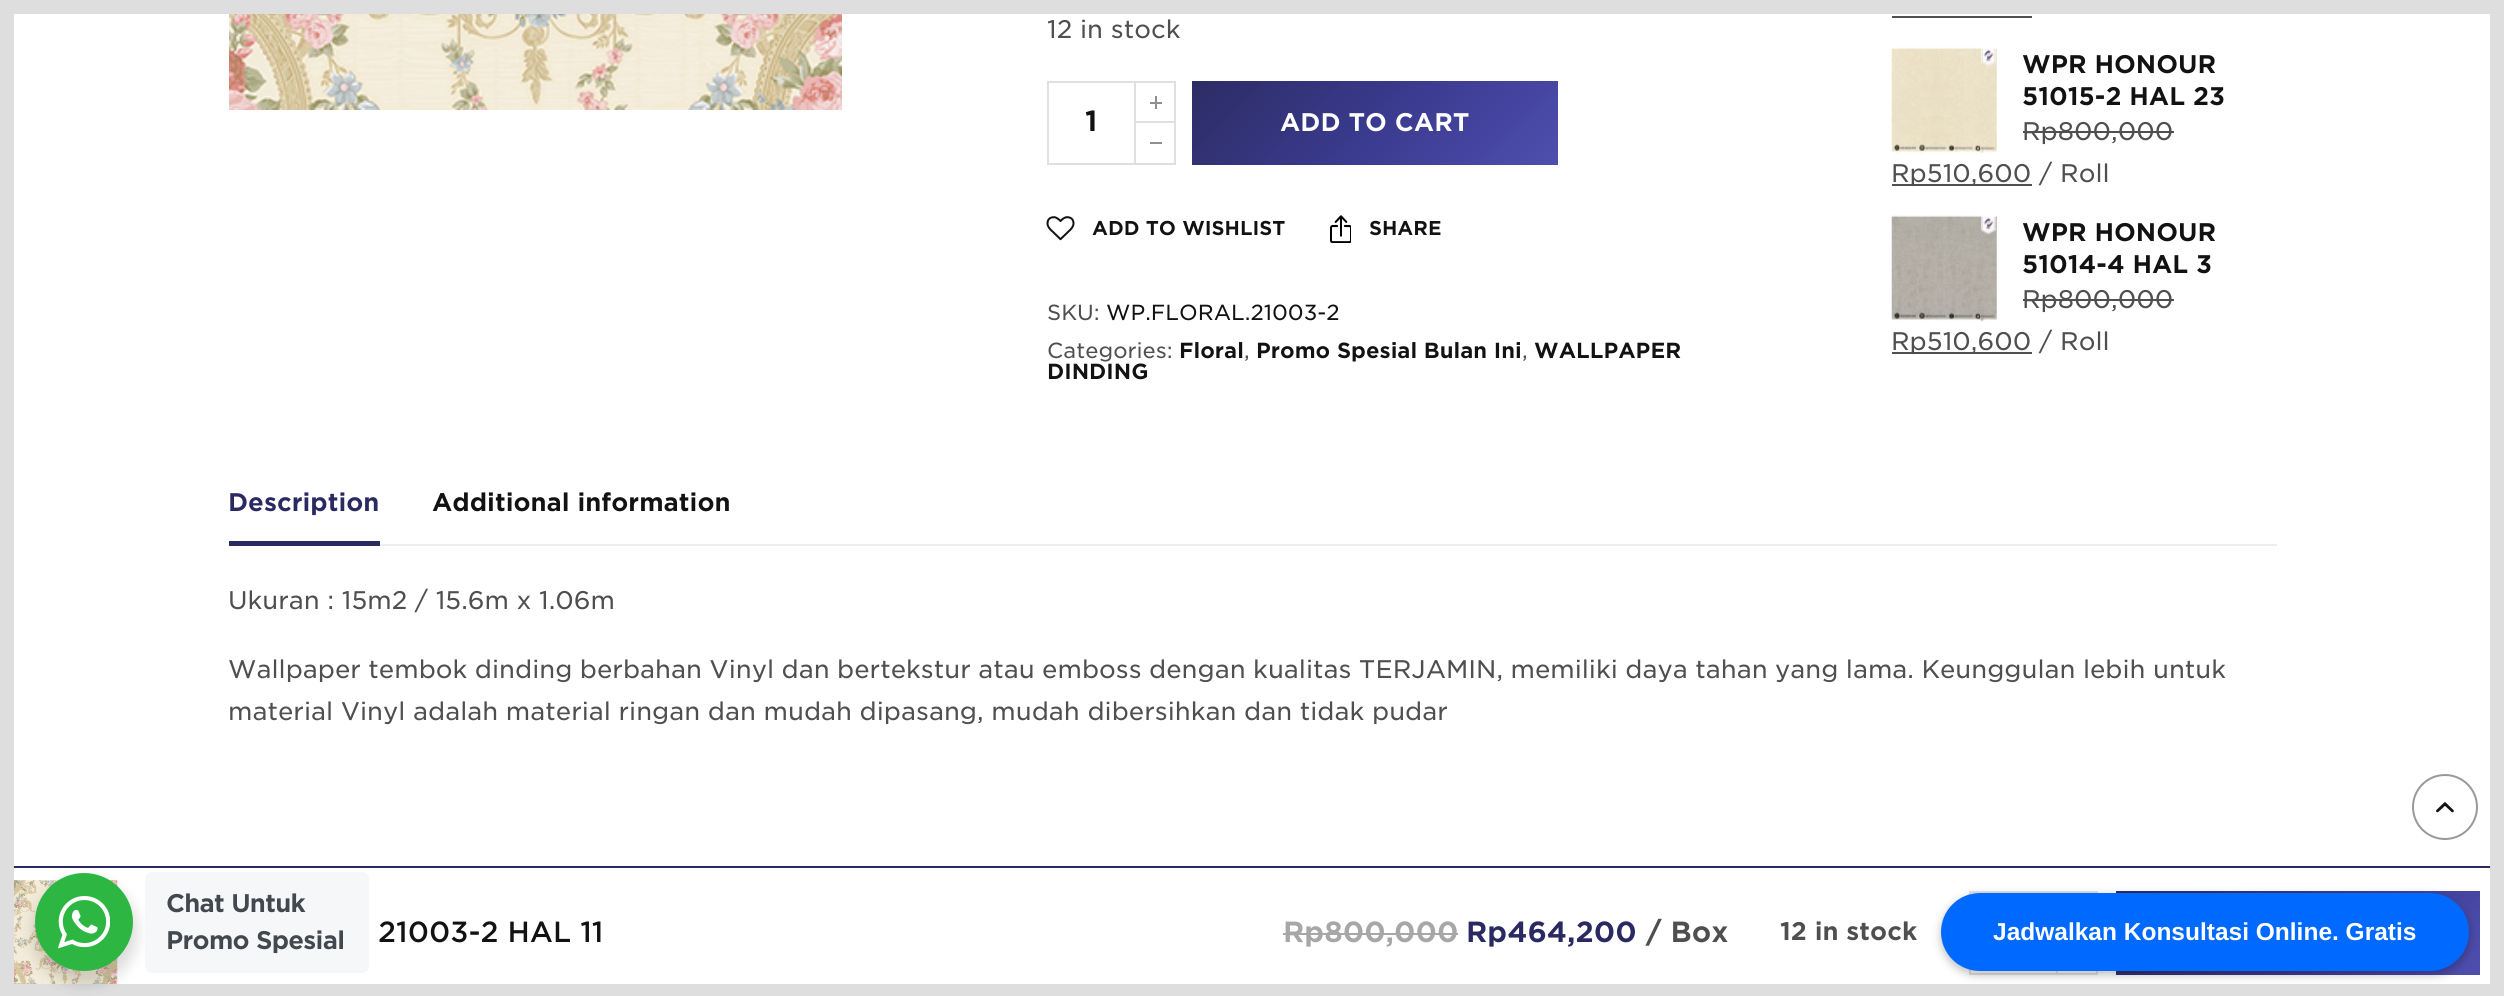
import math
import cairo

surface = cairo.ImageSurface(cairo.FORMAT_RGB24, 2504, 996)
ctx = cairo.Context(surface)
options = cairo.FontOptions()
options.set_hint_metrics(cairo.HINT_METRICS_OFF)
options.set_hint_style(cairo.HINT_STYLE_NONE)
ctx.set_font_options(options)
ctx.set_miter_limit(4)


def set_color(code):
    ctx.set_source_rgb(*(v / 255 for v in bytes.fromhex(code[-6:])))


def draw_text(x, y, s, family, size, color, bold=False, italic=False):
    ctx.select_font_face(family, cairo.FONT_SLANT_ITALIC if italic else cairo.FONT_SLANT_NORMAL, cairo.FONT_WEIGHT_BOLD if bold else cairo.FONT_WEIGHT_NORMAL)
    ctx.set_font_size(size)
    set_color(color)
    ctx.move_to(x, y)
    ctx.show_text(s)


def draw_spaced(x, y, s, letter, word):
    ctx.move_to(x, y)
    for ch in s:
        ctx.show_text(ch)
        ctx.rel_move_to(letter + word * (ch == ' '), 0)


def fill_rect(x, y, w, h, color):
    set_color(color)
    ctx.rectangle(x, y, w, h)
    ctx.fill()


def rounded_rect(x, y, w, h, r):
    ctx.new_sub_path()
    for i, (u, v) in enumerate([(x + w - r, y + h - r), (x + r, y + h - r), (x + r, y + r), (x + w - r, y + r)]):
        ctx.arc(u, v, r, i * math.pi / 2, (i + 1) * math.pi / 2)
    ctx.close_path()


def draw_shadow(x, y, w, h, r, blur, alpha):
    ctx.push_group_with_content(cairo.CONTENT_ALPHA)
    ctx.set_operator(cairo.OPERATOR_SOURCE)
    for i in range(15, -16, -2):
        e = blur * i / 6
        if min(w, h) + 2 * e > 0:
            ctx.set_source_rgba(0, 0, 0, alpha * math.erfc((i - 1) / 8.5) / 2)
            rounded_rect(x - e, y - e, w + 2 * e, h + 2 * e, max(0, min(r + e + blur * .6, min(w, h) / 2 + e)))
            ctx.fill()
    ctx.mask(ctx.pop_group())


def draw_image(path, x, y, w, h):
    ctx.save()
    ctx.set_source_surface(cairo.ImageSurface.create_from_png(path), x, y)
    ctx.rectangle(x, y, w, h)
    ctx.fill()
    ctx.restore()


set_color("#ffffff")
ctx.paint()
draw_image("assets/img1.png", 229, 14, 613, 96)
ctx.rectangle(1048, 82, 87, 82)
set_color("#e0e0e0")
ctx.stroke()
ctx.rectangle(1135, 122, 40, 42)
ctx.stroke()
ctx.rectangle(1135, 82, 40, 40)
ctx.stroke()
fill_rect(1155, 96, 2, 13, "#8f8f8f")
fill_rect(1150, 102, 12, 2, "#8f8f8f")
fill_rect(1150, 142, 12, 2, "#8f8f8f")
gradient = cairo.LinearGradient(1262, 10, 1487, 235)
gradient.add_color_stop_rgba(0, 0.173, 0.173, 0.392, 1)
gradient.add_color_stop_rgba(0.5, 0.227, 0.227, 0.557, 1)
gradient.add_color_stop_rgba(1, 0.306, 0.306, 0.686, 1)
ctx.set_source(gradient)
ctx.rectangle(1192, 81, 366, 84)
ctx.fill()
draw_image("assets/img2.png", 1046, 216, 29, 25)
draw_image("assets/img3.png", 1330, 215, 21, 28)
fill_rect(1892, 16, 140, 2, "#4f4f4f")
draw_image("assets/img4.png", 1891, 47, 106, 107)
fill_rect(2023, 131, 151, 2, "#4f4f4f")
fill_rect(1892, 184, 140, 2, "#4f4f4f")
draw_image("assets/img5.png", 1891, 215, 106, 107)
fill_rect(2023, 299, 151, 2, "#4f4f4f")
fill_rect(1892, 352, 140, 2, "#4f4f4f")
fill_rect(380, 544, 1897, 2, "#eeeeee")
fill_rect(229, 541, 151, 5, "#2a2962")
ctx.arc(2445, 807, 32, 0, 2 * math.pi)
set_color("#999999")
ctx.stroke()
draw_image("assets/img6.png", 2436, 802, 18, 11)
fill_rect(14, 866, 2476, 2, "#2a2962")
draw_image("assets/img8.png", 14, 880, 104, 104)
fill_rect(1283, 933, 175, 2, "#a7a7a7")
ctx.rectangle(1970, 892, 87, 82)
set_color("#e0e0e0")
ctx.stroke()
ctx.rectangle(2057, 932, 40, 42)
ctx.stroke()
ctx.rectangle(2057, 892, 40, 40)
ctx.stroke()
gradient = cairo.LinearGradient(2186, 821, 2410, 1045)
gradient.add_color_stop_rgba(0, 0.173, 0.173, 0.392, 1)
gradient.add_color_stop_rgba(0.5, 0.227, 0.227, 0.557, 1)
gradient.add_color_stop_rgba(1, 0.306, 0.306, 0.686, 1)
ctx.set_source(gradient)
ctx.rectangle(2116, 891, 364, 84)
ctx.fill()
ctx.rectangle(7, 7, 2490, 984)
set_color("#dedede")
ctx.set_line_width(14)
ctx.stroke()
draw_text(1047, 38, "12 in stock", "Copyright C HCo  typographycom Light", 24.5, "#4f4f4f")
draw_text(1085, 131, "1", "Copyright C HCo  typographycom", 28, "#121212")
draw_text(1280, 131, "ADD TO CART", "Copyright C HCo  typographycom", 24.5, "#ffffff")
draw_text(1092, 235, "ADD TO WISHLIST", "Copyright C HCo  typographycom", 19.25, "#121212")
draw_text(1369, 235, "SHARE", "Copyright C HCo  typographycom", 19.25, "#121212")
draw_text(1047, 320, "SKU:", "Copyright C HCo  typographycom Light", 21, "#4f4f4f")
draw_text(1106, 320, "WP.FLORAL.21003-2", "Copyright C HCo  typographycom Light", 21, "#121212")
draw_text(1047, 358, "Categories:", "Copyright C HCo  typographycom Light", 21, "#4f4f4f")
draw_text(1179, 358, "Floral", "Copyright C HCo  typographycom", 21, "#121212")
draw_text(1244, 358, ",", "Copyright C HCo  typographycom Light", 21, "#4f4f4f")
draw_text(1256, 358, "Promo Spesial Bulan Ini", "Copyright C HCo  typographycom", 21, "#121212")
draw_text(1522, 358, ",", "Copyright C HCo  typographycom Light", 21, "#4f4f4f")
draw_text(1534, 358, "WALLPAPER", "Copyright C HCo  typographycom", 21, "#121212")
draw_text(1047, 379, "DINDING", "Copyright C HCo  typographycom", 21, "#121212")
draw_text(2022, 73, "WPR HONOUR", "Copyright C HCo  typographycom", 24.5, "#121212")
draw_text(2022, 105, "51015-2 HAL 23", "Copyright C HCo  typographycom", 24.5, "#121212")
draw_text(2022, 140, "Rp800,000", "Copyright C HCo  typographycom Light", 24.5, "#4f4f4f")
draw_text(1891, 182, "Rp510,600 / Roll", "Copyright C HCo  typographycom Light", 24.5, "#4f4f4f")
draw_text(2022, 241, "WPR HONOUR", "Copyright C HCo  typographycom", 24.5, "#121212")
draw_text(2022, 273, "51014-4 HAL 3", "Copyright C HCo  typographycom", 24.5, "#121212")
draw_text(2022, 308, "Rp800,000", "Copyright C HCo  typographycom Light", 24.5, "#4f4f4f")
draw_text(1891, 350, "Rp510,600 / Roll", "Copyright C HCo  typographycom Light", 24.5, "#4f4f4f")
draw_text(228, 511, "Description", "Copyright C HCo  typographycom", 24.5, "#2a2962")
draw_text(432, 511, "Additional information", "Copyright C HCo  typographycom", 24.5, "#121212")
ctx.select_font_face("Copyright C HCo  typographycom Light")
set_color("#4f4f4f")
draw_spaced(228, 609, "Ukuran : 15m2 / 15.6m x 1.06m", 0, -0.25)
draw_spaced(228, 678, "Wallpaper tembok dinding berbahan Vinyl dan bertekstur atau emboss dengan kualitas TERJAMIN, memiliki daya tahan yang lama. Keunggulan lebih untuk", 0, -0.4)
draw_spaced(228, 720, "material Vinyl adalah material ringan dan mudah dipasang, mudah dibersihkan dan tidak pudar", 0, -0.2)
set_color("#000000")
draw_shadow(32, 880, 105, 105, 52.5, 7, 0.14)
set_color("#2db742")
ctx.arc(84, 922, 49, 0, 2 * math.pi)
ctx.fill()
draw_image("assets/img7.png", 58, 896, 52, 53)
set_color("#f5f7f9")
rounded_rect(145, 872, 224, 101, 7)
ctx.fill()
ctx.select_font_face("Copyright C HCo  typographycom")
set_color("#43474e")
draw_spaced(166, 912, "Chat Untuk", -0.75, 0)
draw_spaced(166, 949, "Promo Spesial", -0.75, 0)
draw_text(378, 942, "21003-2 HAL 11", "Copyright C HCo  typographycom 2 Light", 28, "#121212")
draw_text(1283, 942, "Rp800,000", "Copyright C HCo  typographycom", 28, "#a7a7a7")
draw_text(1466, 942, "Rp464,200", "Copyright C HCo  typographycom", 28, "#2a2962")
draw_text(1646, 942, "/ Box", "Copyright C HCo  typographycom", 28, "#4f4f4f")
draw_text(1780, 940, "12 in stock", "Copyright C HCo  typographycom", 24.5, "#4f4f4f")
set_color("#000000")
draw_shadow(1941, 896, 528, 79, 39.5, 4.5, 0.25)
set_color("#0069ff")
rounded_rect(1941, 893, 528, 78, 39)
ctx.fill()
draw_text(1993, 940, "Jadwalkan Konsultasi Online. Gratis", "Liberation Sans", 24.5, "#ffffff", bold=True)
surface.write_to_png("output.png")
